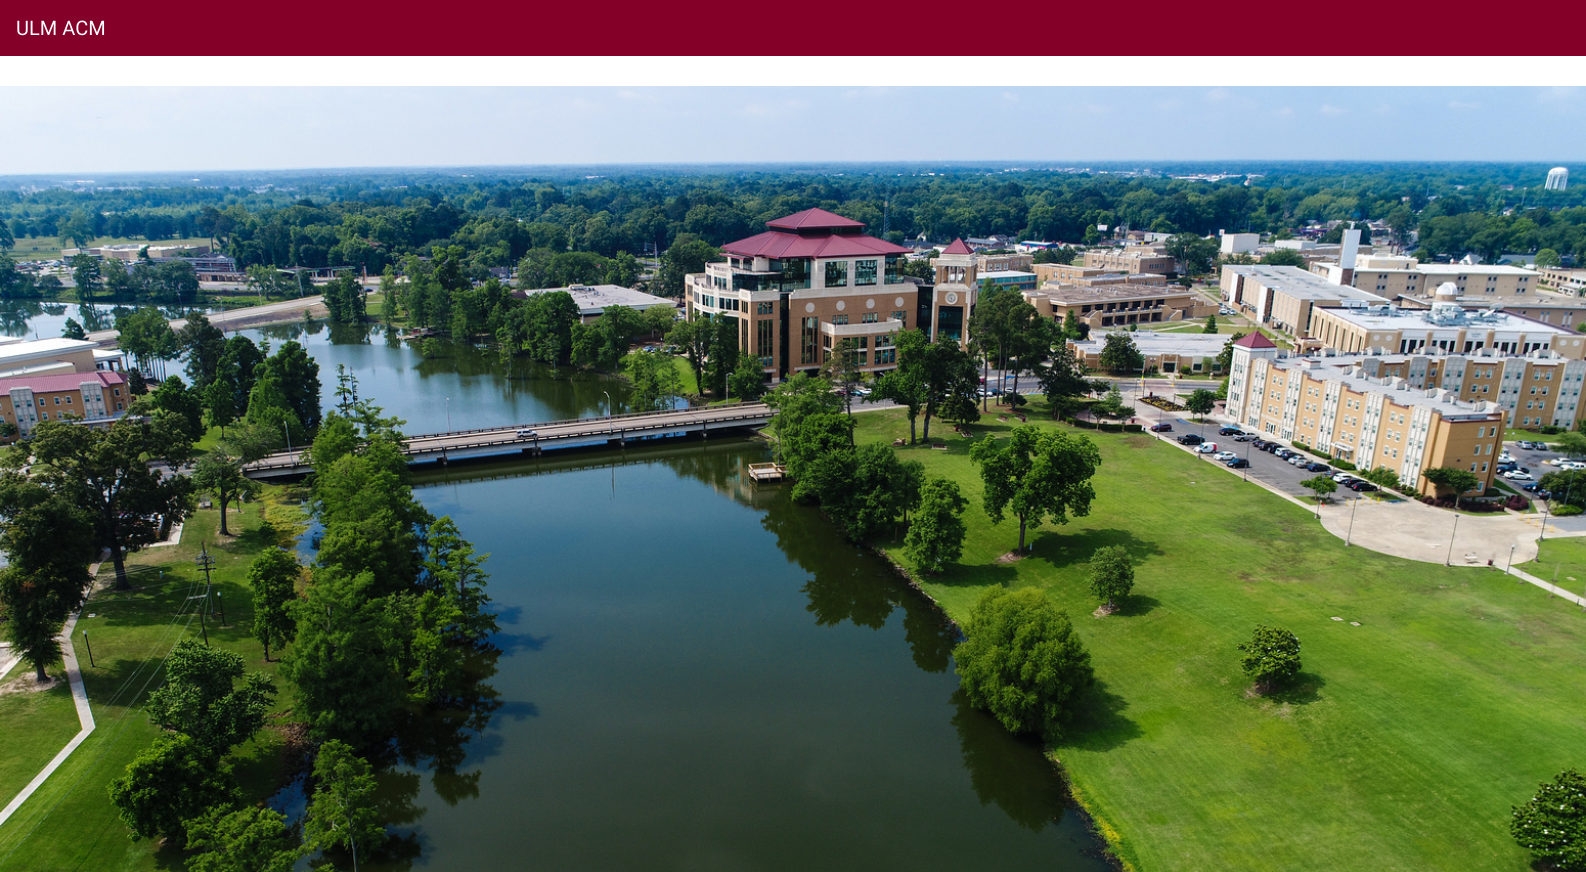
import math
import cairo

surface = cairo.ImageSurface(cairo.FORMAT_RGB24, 1586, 872)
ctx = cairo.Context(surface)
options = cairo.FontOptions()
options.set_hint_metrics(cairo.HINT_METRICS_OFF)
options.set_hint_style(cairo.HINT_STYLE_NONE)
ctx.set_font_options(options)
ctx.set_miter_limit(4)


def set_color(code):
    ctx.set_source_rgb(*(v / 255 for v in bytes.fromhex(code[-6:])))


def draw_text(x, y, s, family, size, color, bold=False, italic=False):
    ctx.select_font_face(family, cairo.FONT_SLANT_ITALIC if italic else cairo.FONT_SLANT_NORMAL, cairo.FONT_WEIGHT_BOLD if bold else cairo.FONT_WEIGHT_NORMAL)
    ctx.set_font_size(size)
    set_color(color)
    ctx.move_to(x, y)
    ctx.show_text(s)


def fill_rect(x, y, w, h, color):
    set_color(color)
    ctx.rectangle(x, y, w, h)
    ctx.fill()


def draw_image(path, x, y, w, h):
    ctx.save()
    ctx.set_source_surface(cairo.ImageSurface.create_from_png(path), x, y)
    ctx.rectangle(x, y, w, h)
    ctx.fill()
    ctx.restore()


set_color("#ffffff")
ctx.paint()
fill_rect(0, 0, 1586, 56, "#840028")
draw_text(16, 35, "ULM ACM", "Roboto", 20, "#ffffff")
draw_image("assets/img1.png", 0, 86, 1586, 786)
surface.write_to_png("output.png")
